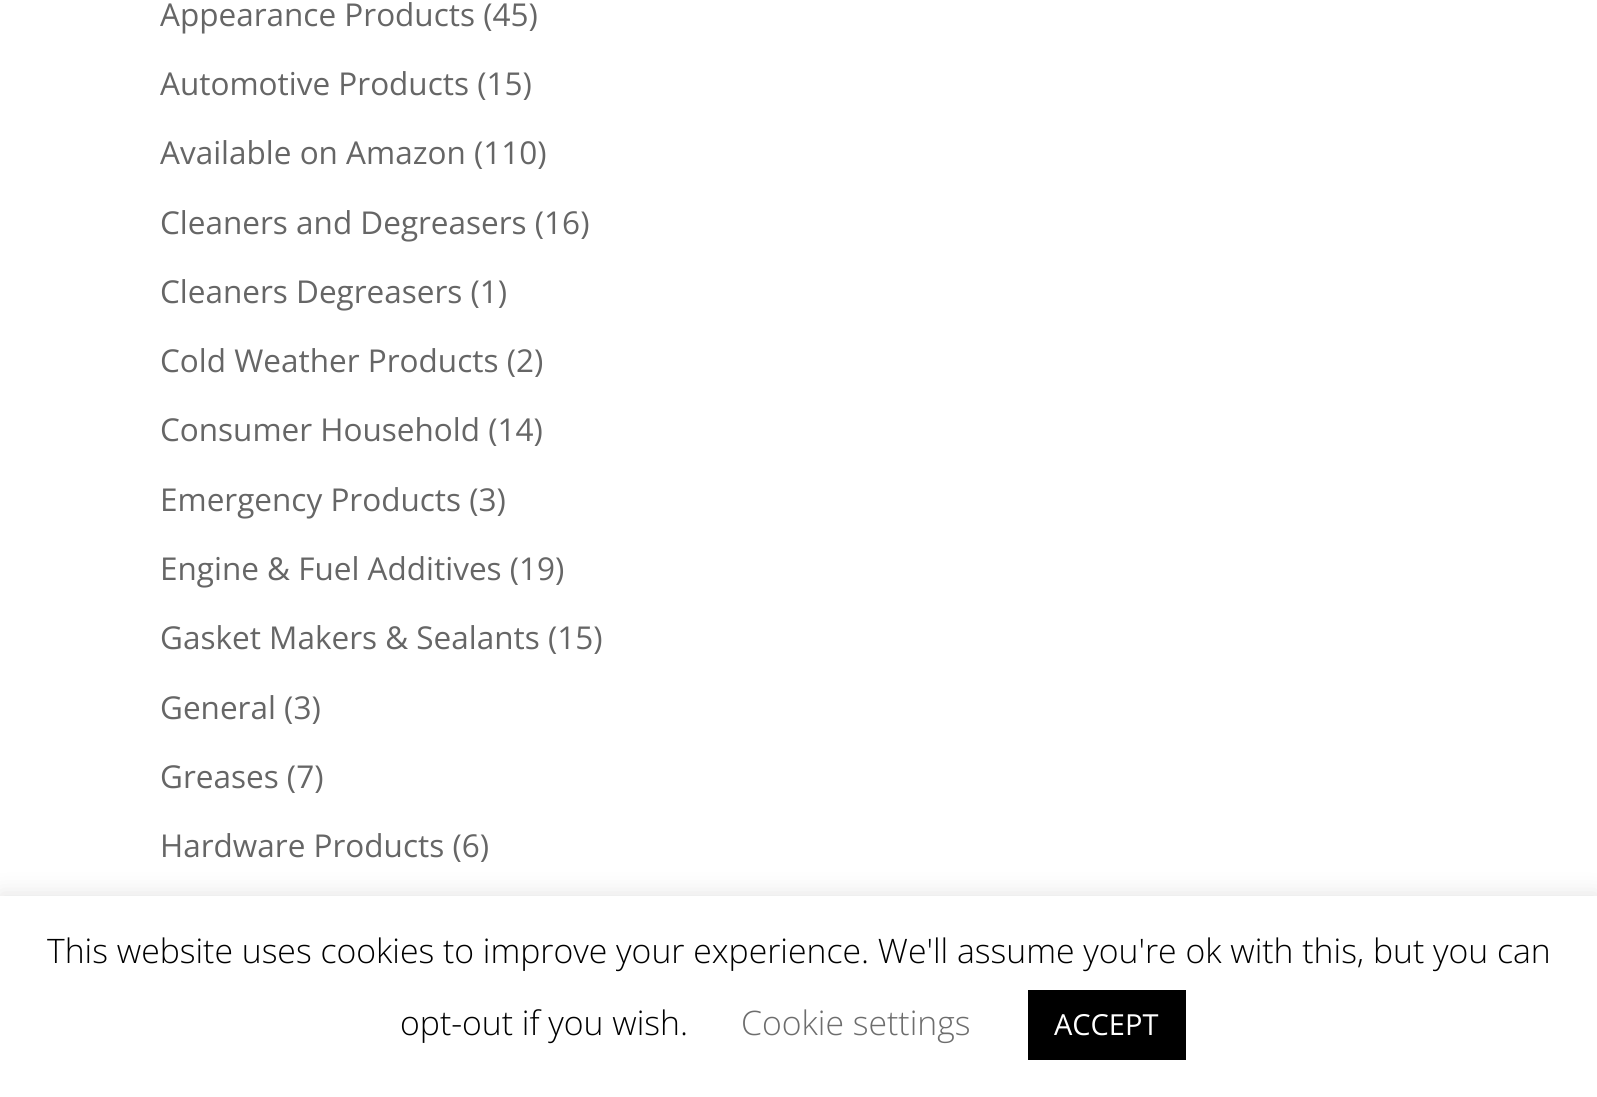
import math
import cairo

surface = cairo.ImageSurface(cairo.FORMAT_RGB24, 1597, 1097)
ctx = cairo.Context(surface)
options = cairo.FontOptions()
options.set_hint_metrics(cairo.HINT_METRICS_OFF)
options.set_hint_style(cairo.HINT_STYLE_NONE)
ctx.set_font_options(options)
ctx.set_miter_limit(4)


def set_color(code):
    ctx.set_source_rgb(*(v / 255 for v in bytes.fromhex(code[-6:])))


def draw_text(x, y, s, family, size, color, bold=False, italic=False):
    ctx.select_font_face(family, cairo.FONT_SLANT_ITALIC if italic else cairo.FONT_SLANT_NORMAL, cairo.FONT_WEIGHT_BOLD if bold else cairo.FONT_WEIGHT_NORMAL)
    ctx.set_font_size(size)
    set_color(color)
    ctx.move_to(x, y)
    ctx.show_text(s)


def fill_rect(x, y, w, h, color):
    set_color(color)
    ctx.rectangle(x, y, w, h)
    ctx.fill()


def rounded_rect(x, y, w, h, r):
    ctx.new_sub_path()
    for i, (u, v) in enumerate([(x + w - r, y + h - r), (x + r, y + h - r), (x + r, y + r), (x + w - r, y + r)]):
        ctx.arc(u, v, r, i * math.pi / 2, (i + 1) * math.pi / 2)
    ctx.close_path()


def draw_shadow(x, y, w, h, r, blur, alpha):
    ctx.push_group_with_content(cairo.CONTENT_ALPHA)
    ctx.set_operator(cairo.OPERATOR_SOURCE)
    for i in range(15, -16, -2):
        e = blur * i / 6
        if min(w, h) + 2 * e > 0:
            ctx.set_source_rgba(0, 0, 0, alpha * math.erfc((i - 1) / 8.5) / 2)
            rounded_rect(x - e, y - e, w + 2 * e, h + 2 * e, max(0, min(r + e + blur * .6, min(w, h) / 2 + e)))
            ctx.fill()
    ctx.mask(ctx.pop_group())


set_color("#ffffff")
ctx.paint()
draw_text(160, 26, "Appearance Products (45)", "Open Sans", 31.5, "#666666")
draw_text(160, 95, "Automotive Products (15)", "Open Sans", 31.5, "#666666")
draw_text(160, 164, "Available on Amazon (110)", "Open Sans", 31.5, "#666666")
draw_text(160, 234, "Cleaners and Degreasers (16)", "Open Sans", 31.5, "#666666")
draw_text(160, 303, "Cleaners Degreasers (1)", "Open Sans", 31.5, "#666666")
draw_text(160, 372, "Cold Weather Products (2)", "Open Sans", 31.5, "#666666")
draw_text(160, 441, "Consumer Household (14)", "Open Sans", 31.5, "#666666")
draw_text(160, 511, "Emergency Products (3)", "Open Sans", 31.5, "#666666")
draw_text(160, 580, "Engine & Fuel Additives (19)", "Open Sans", 31.5, "#666666")
draw_text(160, 649, "Gasket Makers & Sealants (15)", "Open Sans", 31.5, "#666666")
draw_text(160, 719, "General (3)", "Open Sans", 31.5, "#666666")
draw_text(160, 788, "Greases (7)", "Open Sans", 31.5, "#666666")
draw_text(160, 857, "Hardware Products (6)", "Open Sans", 31.5, "#666666")
set_color("#acabab")
draw_shadow(0, 893, 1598, 203, 0, 11, 0.3)
fill_rect(0, 896, 1597, 201, "#ffffff")
draw_text(47, 963, "This website uses cookies to improve your experience. We'll assume you're ok with this, but you can", "Open Sans Light", 33.75, "#000000")
draw_text(400, 1035, "opt-out if you wish.", "Open Sans Light", 33.75, "#000000")
draw_text(741, 1035, "Cookie settings", "Open Sans Light", 33.75, "#6d6d6d")
fill_rect(1028, 990, 158, 70, "#000000")
draw_text(1054, 1035, "ACCEPT", "Open Sans", 29, "#ffffff")
surface.write_to_png("output.png")
